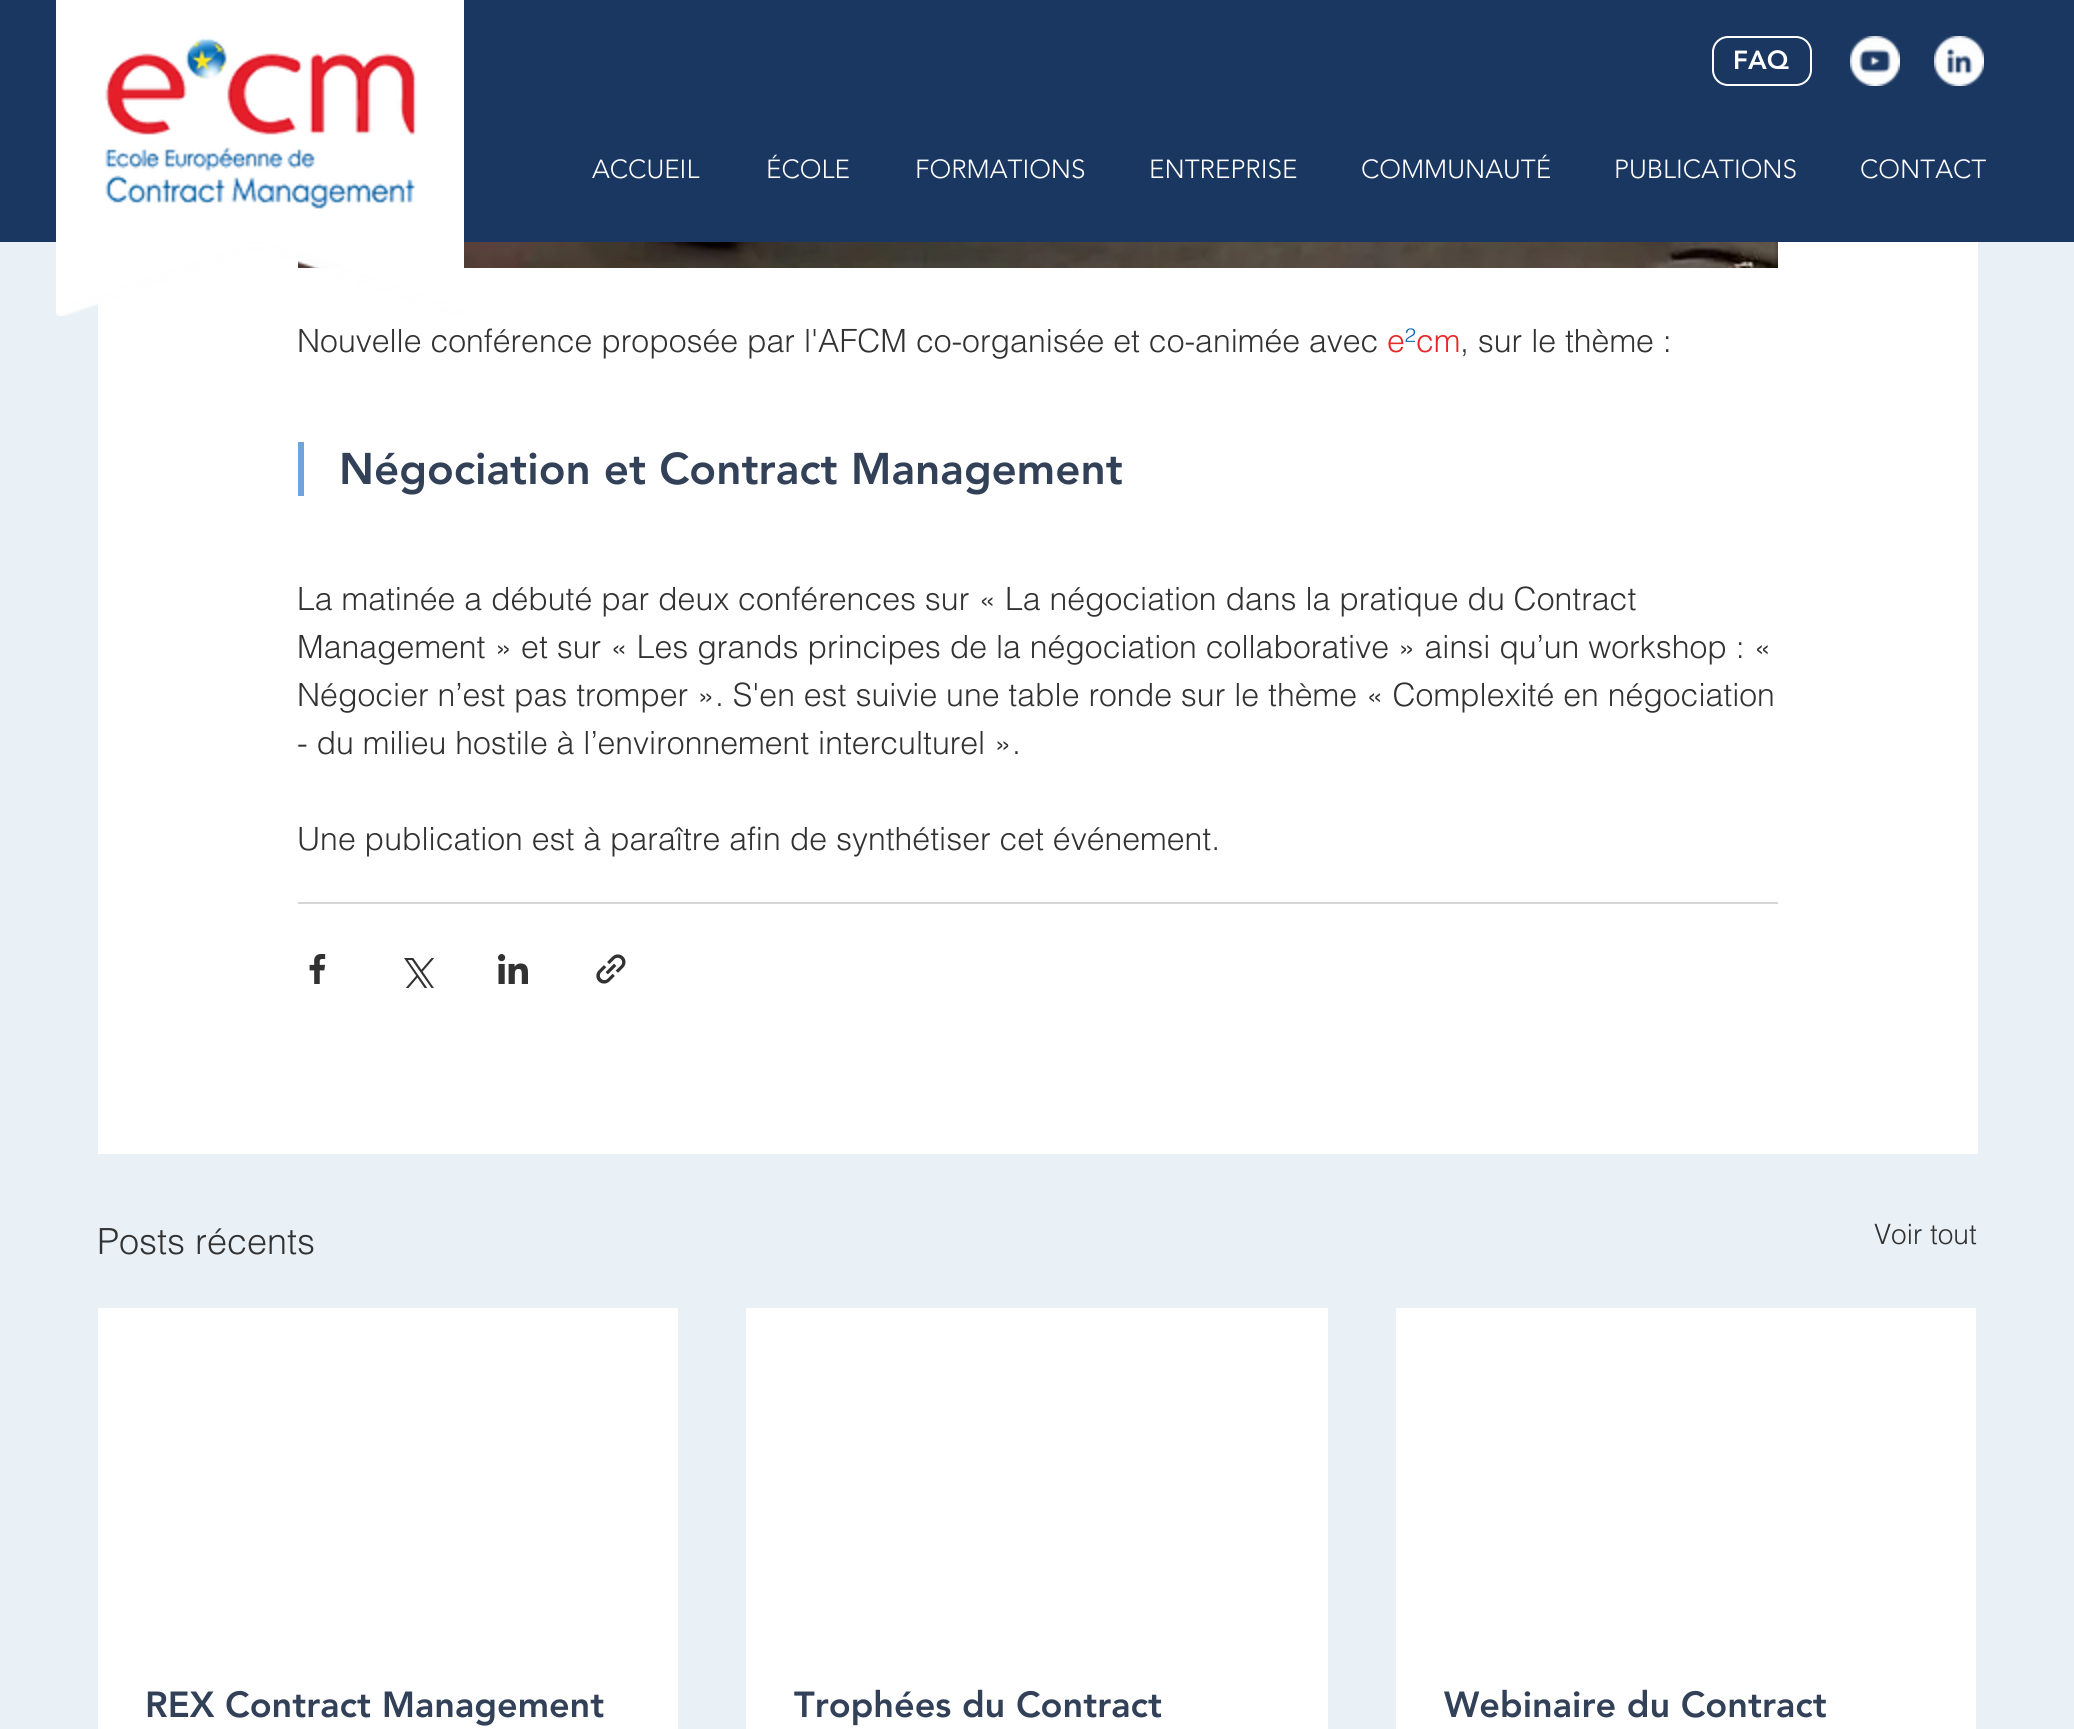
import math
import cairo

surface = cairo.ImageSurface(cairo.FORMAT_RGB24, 2074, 1729)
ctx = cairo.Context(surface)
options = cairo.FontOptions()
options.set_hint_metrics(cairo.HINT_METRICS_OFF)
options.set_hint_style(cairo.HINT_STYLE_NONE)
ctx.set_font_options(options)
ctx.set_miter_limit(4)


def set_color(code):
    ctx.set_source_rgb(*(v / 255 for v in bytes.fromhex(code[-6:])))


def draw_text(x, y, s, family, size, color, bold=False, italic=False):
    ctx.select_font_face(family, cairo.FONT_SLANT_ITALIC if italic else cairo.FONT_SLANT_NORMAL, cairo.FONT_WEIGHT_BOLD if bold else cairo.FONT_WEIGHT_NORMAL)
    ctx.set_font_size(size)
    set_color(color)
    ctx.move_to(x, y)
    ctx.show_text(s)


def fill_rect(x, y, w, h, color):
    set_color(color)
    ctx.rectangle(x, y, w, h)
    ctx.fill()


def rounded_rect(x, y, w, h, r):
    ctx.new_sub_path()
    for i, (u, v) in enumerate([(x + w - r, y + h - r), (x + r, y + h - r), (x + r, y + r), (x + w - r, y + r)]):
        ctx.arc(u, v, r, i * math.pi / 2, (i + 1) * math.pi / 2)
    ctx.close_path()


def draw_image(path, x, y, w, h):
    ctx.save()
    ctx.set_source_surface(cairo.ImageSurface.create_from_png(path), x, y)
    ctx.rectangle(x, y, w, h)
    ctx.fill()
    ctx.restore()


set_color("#e9f1f7")
ctx.paint()
fill_rect(0, 0, 2074, 242, "#1a3762")
fill_rect(98, 242, 1880, 912, "#ffffff")
draw_image("assets/img5.png", 298, 242, 1480, 26)
draw_image("assets/img1.png", 56, 0, 408, 316)
draw_image("assets/img2.png", 1850, 36, 50, 50)
draw_image("assets/img3.png", 1934, 36, 50, 50)
draw_image("assets/img4.png", 105, 37, 312, 172)
rounded_rect(1713, 37, 98, 48, 15)
ctx.stroke()
draw_text(1733, 69, "FAQ", "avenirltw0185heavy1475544 Black", 26, "#ffffff")
draw_text(592, 178, "ACCUEIL", "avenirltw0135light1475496 Light", 26, "#ffffff")
draw_text(766, 178, "ÉCOLE", "avenirltw0135light1475496 Light", 26, "#ffffff")
draw_text(915, 178, "FORMATIONS", "avenirltw0135light1475496 Light", 26, "#ffffff")
draw_text(1149, 178, "ENTREPRISE", "avenirltw0135light1475496 Light", 26, "#ffffff")
draw_text(1361, 178, "COMMUNAUTÉ", "avenirltw0135light1475496 Light", 26, "#ffffff")
draw_text(1614, 178, "PUBLICATIONS", "avenirltw0135light1475496 Light", 26, "#ffffff")
draw_text(1860, 178, "CONTACT", "avenirltw0135light1475496 Light", 26, "#ffffff")
draw_text(297, 352, "Nouvelle conférence proposée par l'AFCM co-organisée et co-animée avec", "helvetica Light", 32, "#323232")
draw_text(1387, 352, "e", "helvetica Light", 32, "#e62828")
draw_text(1405, 352, "²", "helvetica Light", 32, "#0064b4")
draw_text(1416, 352, "cm", "helvetica Light", 32, "#e62828")
draw_text(1460, 352, ", sur le thème :", "helvetica Light", 32, "#323232")
fill_rect(298, 442, 6, 54, "#6da6da")
draw_text(339, 484, "Négociation et Contract Management", "avenirltw0185heavy1475544 Black", 44, "#324158")
draw_text(297, 610, "La matinée a débuté par deux conférences sur « La négociation dans la pratique du Contract", "helvetica Light", 32, "#323232")
draw_text(297, 658, "Management » et sur « Les grands principes de la négociation collaborative » ainsi qu’un workshop : «", "helvetica Light", 32, "#323232")
draw_text(297, 706, "Négocier n’est pas tromper ». S'en est suivie une table ronde sur le thème « Complexité en négociation", "helvetica Light", 32, "#323232")
draw_text(297, 754, "- du milieu hostile à l’environnement interculturel ».", "helvetica Light", 32, "#323232")
draw_text(297, 850, "Une publication est à paraître afin de synthétiser cet événement.", "helvetica Light", 32, "#323232")
fill_rect(298, 902, 1480, 2, "#d6d6d6")
draw_image("assets/img6.png", 309, 954, 17, 30)
draw_image("assets/img7.png", 404, 958, 30, 30)
draw_image("assets/img8.png", 498, 954, 30, 30)
draw_image("assets/img9.png", 596, 954, 30, 30)
draw_text(97, 1254, "Posts récents", "helvetica Light", 36, "#323232")
draw_text(1874, 1244, "Voir tout", "helvetica Light", 28, "#323232")
fill_rect(98, 1308, 580, 421, "#ffffff")
draw_text(145, 1717, "REX Contract Management", "avenirltw0185heavy1475544 Black", 36, "#324158")
fill_rect(746, 1308, 582, 421, "#ffffff")
draw_text(794, 1717, "Trophées du Contract", "avenirltw0185heavy1475544 Black", 36, "#324158")
fill_rect(1396, 1308, 580, 421, "#ffffff")
draw_text(1444, 1717, "Webinaire du Contract", "avenirltw0185heavy1475544 Black", 36, "#324158")
surface.write_to_png("output.png")
